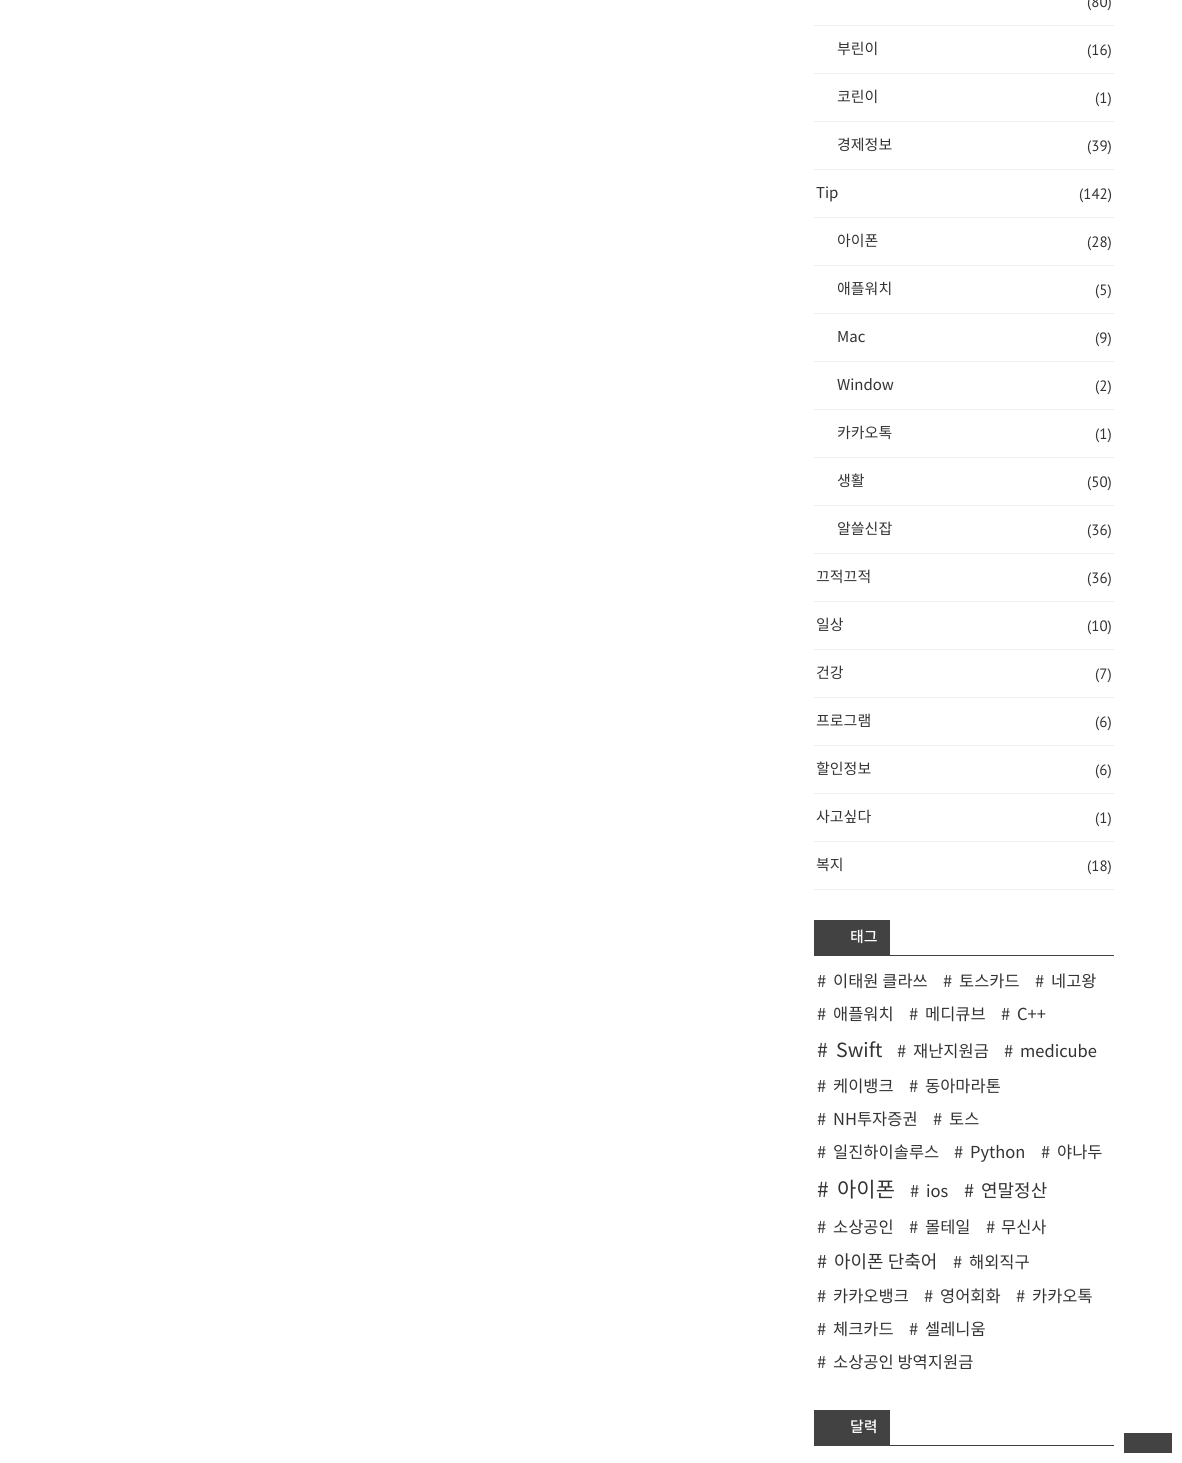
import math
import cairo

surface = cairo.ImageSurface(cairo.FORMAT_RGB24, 1182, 1463)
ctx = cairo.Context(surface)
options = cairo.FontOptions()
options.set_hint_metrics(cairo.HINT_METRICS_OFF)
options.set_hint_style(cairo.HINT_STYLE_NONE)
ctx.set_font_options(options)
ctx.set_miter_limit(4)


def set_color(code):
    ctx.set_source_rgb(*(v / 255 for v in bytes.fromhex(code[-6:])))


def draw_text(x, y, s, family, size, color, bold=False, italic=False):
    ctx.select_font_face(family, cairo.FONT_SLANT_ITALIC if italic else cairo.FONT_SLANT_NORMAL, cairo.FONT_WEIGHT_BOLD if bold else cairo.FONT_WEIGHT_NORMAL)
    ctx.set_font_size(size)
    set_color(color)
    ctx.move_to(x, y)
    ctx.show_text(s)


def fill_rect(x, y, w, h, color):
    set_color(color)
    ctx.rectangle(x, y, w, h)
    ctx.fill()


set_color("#ffffff")
ctx.paint()
fill_rect(814, 25, 300, 1, "#eeeeee")
draw_text(1087, 7, "(80)", "PT Sans", 15, "#333333")
fill_rect(814, 73, 300, 1, "#eeeeee")
draw_text(837, 54, "부린이", "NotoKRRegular", 15, "#333333")
draw_text(1087, 55, "(16)", "PT Sans", 15, "#333333")
fill_rect(814, 121, 300, 1, "#eeeeee")
draw_text(837, 102, "코린이", "NotoKRRegular", 15, "#333333")
draw_text(1095, 103, "(1)", "PT Sans", 15, "#333333")
fill_rect(814, 169, 300, 1, "#eeeeee")
draw_text(837, 150, "경제정보", "NotoKRRegular", 15, "#333333")
draw_text(1087, 151, "(39)", "PT Sans", 15, "#333333")
fill_rect(814, 217, 300, 1, "#eeeeee")
draw_text(816, 198, "Tip", "NotoKRRegular", 15, "#333333")
draw_text(1079, 199, "(142)", "PT Sans", 15, "#333333")
fill_rect(814, 265, 300, 1, "#eeeeee")
draw_text(837, 246, "아이폰", "NotoKRRegular", 15, "#333333")
draw_text(1087, 247, "(28)", "PT Sans", 15, "#333333")
fill_rect(814, 313, 300, 1, "#eeeeee")
draw_text(837, 294, "애플워치", "NotoKRRegular", 15, "#333333")
draw_text(1095, 295, "(5)", "PT Sans", 15, "#333333")
fill_rect(814, 361, 300, 1, "#eeeeee")
draw_text(837, 342, "Mac", "NotoKRRegular", 15, "#333333")
draw_text(1095, 343, "(9)", "PT Sans", 15, "#333333")
fill_rect(814, 409, 300, 1, "#eeeeee")
draw_text(837, 390, "Window", "NotoKRRegular", 15, "#333333")
draw_text(1095, 391, "(2)", "PT Sans", 15, "#333333")
fill_rect(814, 457, 300, 1, "#eeeeee")
draw_text(837, 438, "카카오톡", "NotoKRRegular", 15, "#333333")
draw_text(1095, 439, "(1)", "PT Sans", 15, "#333333")
fill_rect(814, 505, 300, 1, "#eeeeee")
draw_text(837, 486, "생활", "NotoKRRegular", 15, "#333333")
draw_text(1087, 487, "(50)", "PT Sans", 15, "#333333")
fill_rect(814, 553, 300, 1, "#eeeeee")
draw_text(837, 534, "알쓸신잡", "NotoKRRegular", 15, "#333333")
draw_text(1087, 535, "(36)", "PT Sans", 15, "#333333")
fill_rect(814, 601, 300, 1, "#eeeeee")
draw_text(816, 582, "끄적끄적", "NotoKRRegular", 15, "#333333")
draw_text(1087, 583, "(36)", "PT Sans", 15, "#333333")
fill_rect(814, 649, 300, 1, "#eeeeee")
draw_text(816, 630, "일상", "NotoKRRegular", 15, "#333333")
draw_text(1087, 631, "(10)", "PT Sans", 15, "#333333")
fill_rect(814, 697, 300, 1, "#eeeeee")
draw_text(816, 678, "건강", "NotoKRRegular", 15, "#333333")
draw_text(1095, 679, "(7)", "PT Sans", 15, "#333333")
fill_rect(814, 745, 300, 1, "#eeeeee")
draw_text(816, 726, "프로그램", "NotoKRRegular", 15, "#333333")
draw_text(1095, 727, "(6)", "PT Sans", 15, "#333333")
fill_rect(814, 793, 300, 1, "#eeeeee")
draw_text(816, 774, "할인정보", "NotoKRRegular", 15, "#333333")
draw_text(1095, 775, "(6)", "PT Sans", 15, "#333333")
fill_rect(814, 841, 300, 1, "#eeeeee")
draw_text(816, 822, "사고싶다", "NotoKRRegular", 15, "#333333")
draw_text(1095, 823, "(1)", "PT Sans", 15, "#333333")
fill_rect(814, 889, 300, 1, "#eeeeee")
draw_text(816, 870, "복지", "NotoKRRegular", 15, "#333333")
draw_text(1087, 871, "(18)", "PT Sans", 15, "#333333")
fill_rect(814, 955, 300, 1, "#424242")
fill_rect(814, 920, 76, 35, "#424242")
draw_text(850, 942, "태그", "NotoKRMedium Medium", 15, "#ffffff")
draw_text(817, 987, "#", "NotoKRRegular", 16.5, "#333333")
draw_text(833, 987, "이태원 클라쓰", "NotoKRRegular", 16.5, "#333333")
draw_text(943, 987, "#", "NotoKRRegular", 16.5, "#333333")
draw_text(959, 987, "토스카드", "NotoKRRegular", 16.5, "#333333")
draw_text(1035, 987, "#", "NotoKRRegular", 16.5, "#333333")
draw_text(1051, 987, "네고왕", "NotoKRRegular", 16.5, "#333333")
draw_text(817, 1020, "#", "NotoKRRegular", 16.5, "#333333")
draw_text(833, 1020, "애플워치", "NotoKRRegular", 16.5, "#333333")
draw_text(909, 1020, "#", "NotoKRRegular", 16.5, "#333333")
draw_text(925, 1020, "메디큐브", "NotoKRRegular", 16.5, "#333333")
draw_text(1001, 1020, "#", "NotoKRRegular", 16.5, "#333333")
draw_text(1017, 1020, "C++", "NotoKRRegular", 16.5, "#333333")
draw_text(817, 1057, "#", "NotoKRRegular", 19.5, "#333333")
draw_text(836, 1057, "Swift", "NotoKRRegular", 19.5, "#333333")
draw_text(897, 1057, "#", "NotoKRRegular", 16.5, "#333333")
draw_text(913, 1057, "재난지원금", "NotoKRRegular", 16.5, "#333333")
draw_text(1004, 1057, "#", "NotoKRRegular", 16.5, "#333333")
draw_text(1020, 1057, "medicube", "NotoKRRegular", 16.5, "#333333")
draw_text(817, 1092, "#", "NotoKRRegular", 16.5, "#333333")
draw_text(833, 1092, "케이뱅크", "NotoKRRegular", 16.5, "#333333")
draw_text(909, 1092, "#", "NotoKRRegular", 16.5, "#333333")
draw_text(925, 1092, "동아마라톤", "NotoKRRegular", 16.5, "#333333")
draw_text(817, 1125, "#", "NotoKRRegular", 16.5, "#333333")
draw_text(833, 1125, "NH투자증권", "NotoKRRegular", 16.5, "#333333")
draw_text(933, 1125, "#", "NotoKRRegular", 16.5, "#333333")
draw_text(949, 1125, "토스", "NotoKRRegular", 16.5, "#333333")
draw_text(817, 1158, "#", "NotoKRRegular", 16.5, "#333333")
draw_text(833, 1158, "일진하이솔루스", "NotoKRRegular", 16.5, "#333333")
draw_text(954, 1158, "#", "NotoKRRegular", 16.5, "#333333")
draw_text(970, 1158, "Python", "NotoKRRegular", 16.5, "#333333")
draw_text(1041, 1158, "#", "NotoKRRegular", 16.5, "#333333")
draw_text(1057, 1158, "야나두", "NotoKRRegular", 16.5, "#333333")
draw_text(817, 1197, "#", "NotoKRRegular", 21, "#333333")
draw_text(837, 1197, "아이폰", "NotoKRRegular", 21, "#333333")
draw_text(910, 1197, "#", "NotoKRRegular", 16.5, "#333333")
draw_text(926, 1197, "ios", "NotoKRRegular", 16.5, "#333333")
draw_text(964, 1197, "#", "NotoKRRegular", 18, "#333333")
draw_text(981, 1197, "연말정산", "NotoKRRegular", 18, "#333333")
draw_text(817, 1233, "#", "NotoKRRegular", 16.5, "#333333")
draw_text(833, 1233, "소상공인", "NotoKRRegular", 16.5, "#333333")
draw_text(909, 1233, "#", "NotoKRRegular", 16.5, "#333333")
draw_text(925, 1233, "몰테일", "NotoKRRegular", 16.5, "#333333")
draw_text(986, 1233, "#", "NotoKRRegular", 16.5, "#333333")
draw_text(1001, 1233, "무신사", "NotoKRRegular", 16.5, "#333333")
draw_text(817, 1268, "#", "NotoKRRegular", 18, "#333333")
draw_text(834, 1268, "아이폰 단축어", "NotoKRRegular", 18, "#333333")
draw_text(953, 1268, "#", "NotoKRRegular", 16.5, "#333333")
draw_text(969, 1268, "해외직구", "NotoKRRegular", 16.5, "#333333")
draw_text(817, 1302, "#", "NotoKRRegular", 16.5, "#333333")
draw_text(833, 1302, "카카오뱅크", "NotoKRRegular", 16.5, "#333333")
draw_text(924, 1302, "#", "NotoKRRegular", 16.5, "#333333")
draw_text(940, 1302, "영어회화", "NotoKRRegular", 16.5, "#333333")
draw_text(1016, 1302, "#", "NotoKRRegular", 16.5, "#333333")
draw_text(1032, 1302, "카카오톡", "NotoKRRegular", 16.5, "#333333")
draw_text(817, 1335, "#", "NotoKRRegular", 16.5, "#333333")
draw_text(833, 1335, "체크카드", "NotoKRRegular", 16.5, "#333333")
draw_text(909, 1335, "#", "NotoKRRegular", 16.5, "#333333")
draw_text(925, 1335, "셀레니움", "NotoKRRegular", 16.5, "#333333")
draw_text(817, 1368, "#", "NotoKRRegular", 16.5, "#333333")
draw_text(833, 1368, "소상공인 방역지원금", "NotoKRRegular", 16.5, "#333333")
fill_rect(814, 1445, 300, 1, "#424242")
fill_rect(814, 1410, 76, 35, "#424242")
draw_text(850, 1432, "달력", "NotoKRMedium Medium", 15, "#ffffff")
fill_rect(1124, 1433, 48, 20, "#434343")
surface.write_to_png("output.png")
